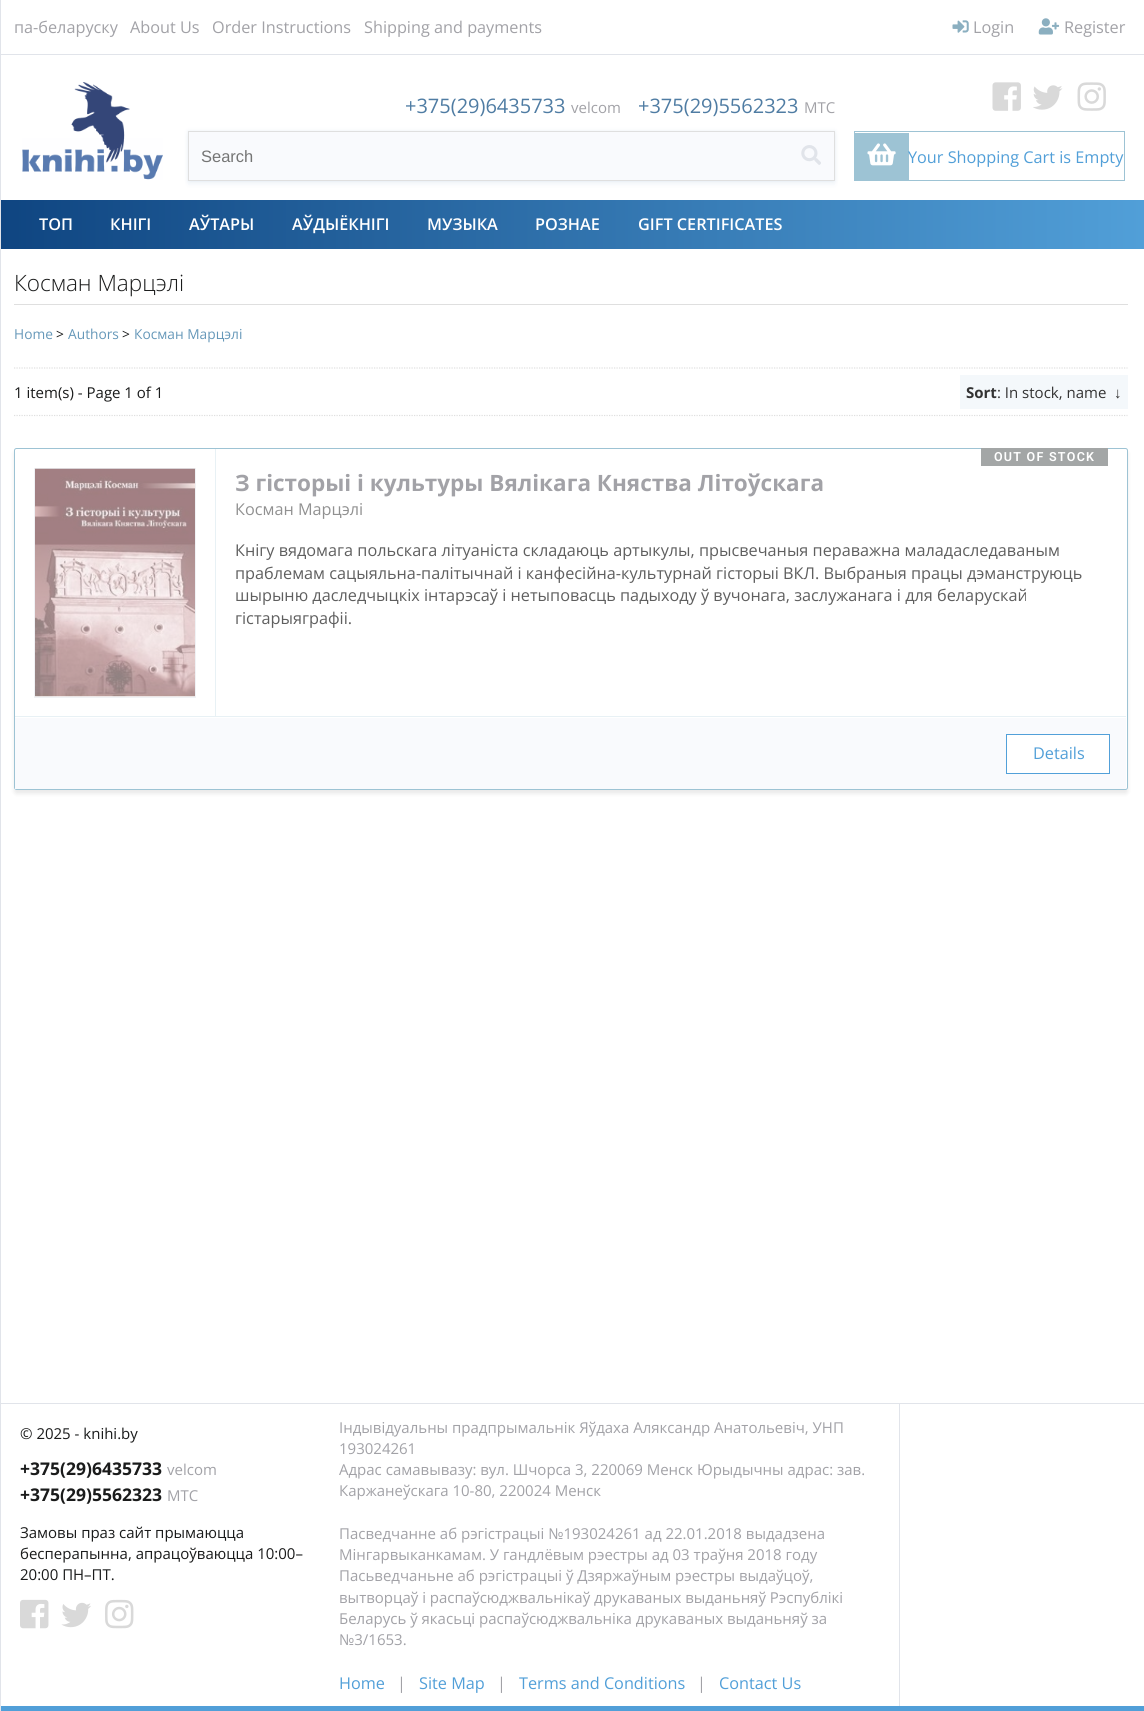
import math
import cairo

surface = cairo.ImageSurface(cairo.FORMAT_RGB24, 1144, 1711)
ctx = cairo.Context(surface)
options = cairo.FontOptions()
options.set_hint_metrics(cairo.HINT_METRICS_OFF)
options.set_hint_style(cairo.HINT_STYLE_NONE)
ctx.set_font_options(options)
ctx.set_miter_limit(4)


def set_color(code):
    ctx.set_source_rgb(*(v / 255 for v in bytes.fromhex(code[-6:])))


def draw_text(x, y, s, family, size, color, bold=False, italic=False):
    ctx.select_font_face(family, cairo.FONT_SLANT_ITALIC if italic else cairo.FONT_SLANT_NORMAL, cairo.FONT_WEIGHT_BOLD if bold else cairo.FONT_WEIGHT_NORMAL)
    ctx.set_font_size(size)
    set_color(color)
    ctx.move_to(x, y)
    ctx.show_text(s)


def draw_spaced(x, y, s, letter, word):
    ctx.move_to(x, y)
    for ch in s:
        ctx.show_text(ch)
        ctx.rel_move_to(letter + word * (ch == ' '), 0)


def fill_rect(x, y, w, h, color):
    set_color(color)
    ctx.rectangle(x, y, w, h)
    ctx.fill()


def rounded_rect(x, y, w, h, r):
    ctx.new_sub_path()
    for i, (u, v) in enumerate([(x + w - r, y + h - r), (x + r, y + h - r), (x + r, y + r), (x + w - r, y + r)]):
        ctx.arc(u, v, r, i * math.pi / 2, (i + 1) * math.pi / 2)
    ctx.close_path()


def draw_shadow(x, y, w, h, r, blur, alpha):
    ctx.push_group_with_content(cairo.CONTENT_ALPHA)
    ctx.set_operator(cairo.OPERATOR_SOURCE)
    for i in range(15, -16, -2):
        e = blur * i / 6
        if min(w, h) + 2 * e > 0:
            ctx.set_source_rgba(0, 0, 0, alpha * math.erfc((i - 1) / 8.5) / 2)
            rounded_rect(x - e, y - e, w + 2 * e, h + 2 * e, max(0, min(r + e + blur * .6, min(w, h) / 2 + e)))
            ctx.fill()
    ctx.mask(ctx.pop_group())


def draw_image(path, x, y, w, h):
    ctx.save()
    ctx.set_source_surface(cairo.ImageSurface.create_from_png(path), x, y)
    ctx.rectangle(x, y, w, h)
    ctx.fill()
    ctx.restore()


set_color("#ffffff")
ctx.paint()
fill_rect(0, 0, 1, 1711, "#e1e4ea")
fill_rect(1, 54, 1143, 1, "#e1e4ea")
draw_text(14, 33, "па-беларуску", "Open Sans", 16.25, "#a2a2a7")
draw_text(130, 33, "About Us", "Open Sans", 16.25, "#a2a2a7")
draw_text(212, 33, "Order Instructions", "Open Sans", 16.25, "#a2a2a7")
draw_text(364, 33, "Shipping and payments", "Open Sans", 16.25, "#a2a2a7")
draw_image("assets/img1.png", 952, 20, 17, 13)
draw_text(973, 33, "Login", "Open Sans", 16.25, "#a2a2a7")
draw_image("assets/img2.png", 1038, 18, 22, 17)
draw_text(1064, 33, "Register", "Open Sans", 16.25, "#a2a2a7")
draw_image("assets/img3.png", 22, 82, 141, 98)
draw_text(405, 113, "+375(29)6435733", "Open Sans", 20, "#4f7ca3")
draw_text(571, 113, "velcom", "Open Sans", 15, "#a2a2a7")
draw_text(638, 113, "+375(29)5562323", "Open Sans", 20, "#4f7ca3")
draw_text(804, 113, "MTC", "Open Sans", 15, "#a2a2a7")
set_color("#2d6ea4")
draw_shadow(188, 135, 647, 50, 0, 2, 0.05)
draw_shadow(188, 131, 647, 50, 0, 2, 0.1)
set_color("#f9fafd")
ctx.rectangle(188.5, 131.5, 646, 49)
ctx.fill_preserve()
set_color("#dfdfdf")
ctx.set_line_width(1)
ctx.stroke()
draw_text(201, 162, "Search", "Liberation Sans", 16.5, "#757575")
draw_image("assets/img4.png", 801, 145, 20, 20)
draw_image("assets/img5.png", 992, 82, 29, 29)
draw_image("assets/img6.png", 1033, 85, 30, 25)
draw_image("assets/img7.png", 1077, 82, 29, 29)
ctx.rectangle(854.5, 131.5, 270, 49)
set_color("#9dc3d4")
ctx.stroke()
fill_rect(855, 133, 54, 47, "#9dc3d4")
draw_image("assets/img8.png", 867, 143, 29, 23)
draw_text(908, 163, "Your Shopping Cart is Empty", "Open Sans", 16.25, "#519fd8")
gradient = cairo.LinearGradient(1.2, 224, 1144, 224)
gradient.add_color_stop_rgba(0, 0.059, 0.271, 0.506, 1)
gradient.add_color_stop_rgba(1, 0.318, 0.624, 0.847, 1)
ctx.set_source(gradient)
ctx.rectangle(1, 200, 1143, 49)
ctx.fill()
draw_text(39, 230, "ТОП", "Open Sans SemiBold", 16.25, "#ffffff")
draw_text(110, 230, "КНІГІ", "Open Sans SemiBold", 16.25, "#ffffff")
draw_text(189, 230, "АЎТАРЫ", "Open Sans SemiBold", 16.25, "#ffffff")
draw_text(292, 230, "АЎДЫЁКНІГІ", "Open Sans SemiBold", 16.25, "#ffffff")
draw_text(427, 230, "МУЗЫКА", "Open Sans SemiBold", 16.25, "#ffffff")
draw_text(535, 230, "РОЗНАЕ", "Open Sans SemiBold", 16.25, "#ffffff")
draw_text(638, 230, "GIFT CERTIFICATES", "Open Sans SemiBold", 16.25, "#ffffff")
fill_rect(14, 304, 1114, 1, "#dfdfdf")
draw_text(14, 291, "Косман Марцэлі", "Open Sans Light", 22.5, "#1a1b1b")
draw_text(14, 339, "Home", "Open Sans", 13.75, "#6698b9")
draw_text(56, 339, ">", "Open Sans", 13.75, "#1a1b1b")
draw_text(68, 339, "Authors", "Open Sans", 13.75, "#6698b9")
draw_text(122, 339, ">", "Open Sans", 13.75, "#1a1b1b")
draw_text(134, 339, "Косман Марцэлі", "Open Sans", 13.75, "#6698b9")
ctx.new_path()
ctx.move_to(14, 368)
ctx.line_to(1127.5, 368)
set_color("#dfdfdf")
ctx.set_line_width(1.2)
ctx.set_dash([1.25, 1.25])
ctx.stroke()
ctx.new_path()
ctx.move_to(14, 415.5)
ctx.line_to(1127.5, 415.5)
ctx.stroke()
draw_text(14, 398, "1 item(s) - Page 1 of 1", "Open Sans", 15, "#1a1b1b")
fill_rect(960, 375, 168, 34, "#f4f8fb")
draw_text(966, 398, "Sort", "Open Sans", 15, "#333333", bold=True)
draw_text(997, 398, ": In stock, name", "Open Sans", 15, "#333333")
draw_text(1114, 398, "↓", "Liberation Sans", 15, "#333333")
ctx.save()
ctx.set_fill_rule(cairo.FILL_RULE_EVEN_ODD)
ctx.new_path()
ctx.move_to(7, 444)
ctx.line_to(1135, 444)
ctx.line_to(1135, 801)
ctx.line_to(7, 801)
ctx.close_path()
ctx.move_to(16.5, 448)
ctx.line_to(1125.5, 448)
ctx.curve_to(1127, 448, 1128, 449, 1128, 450.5)
ctx.line_to(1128, 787.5)
ctx.curve_to(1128, 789, 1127, 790, 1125.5, 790)
ctx.line_to(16.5, 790)
ctx.curve_to(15, 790, 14, 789, 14, 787.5)
ctx.line_to(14, 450.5)
ctx.curve_to(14, 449, 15, 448, 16.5, 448)
ctx.close_path()
ctx.clip()
set_color("#000000")
draw_shadow(14, 451, 1114, 343, 2.5, 2, 0.08)
ctx.restore()
rounded_rect(14.5, 448.5, 1113, 341, 2)
set_color("#9dc3d4")
ctx.set_line_width(1)
ctx.set_dash([])
ctx.stroke()
fill_rect(15, 716, 1111, 1, "#e8f1f5")
fill_rect(215, 449, 1, 267, "#e8f1f5")
ctx.rectangle(34.5, 468.5, 161, 229)
set_color("#f0f2f5")
ctx.stroke()
draw_image("assets/img9.png", 35, 468, 160, 229)
fill_rect(981, 448, 127, 18, "#a3a6a6")
ctx.select_font_face("Roboto SemiBold")
ctx.set_font_size(12.5)
set_color("#ffffff")
draw_spaced(994, 461, "OUT OF STOCK", 1.25, 0)
draw_text(235, 491, "З гісторыі і культуры Вялікага Княства Літоўскага", "Open Sans", 22.5, "#a2a2a7", bold=True)
draw_text(235, 515, "Косман Марцэлі", "Open Sans", 16.25, "#919191")
draw_text(235, 556, "Кнігу вядомага польскага літуаніста складаюць артыкулы, прысвечаныя пераважна маладаследаваным", "Open Sans", 16.25, "#5f5f5f")
draw_text(235, 579, "праблемам сацыяльна-палітычнай і канфесійна-культурнай гісторыі ВКЛ. Выбраныя працы дэманструюць", "Open Sans", 16.25, "#5f5f5f")
draw_text(235, 601, "шырыню даследчыцкіх інтарэсаў і нетыповасць падыходу ў вучонага, заслужанага і для беларускай", "Open Sans", 16.25, "#5f5f5f")
draw_text(235, 624, "гістарыяграфіі.", "Open Sans", 16.25, "#5f5f5f")
fill_rect(15, 718, 1111, 71, "#f9fafd")
set_color("#ffffff")
ctx.rectangle(1006.5, 734.5, 103, 39)
ctx.fill_preserve()
set_color("#52a0d9")
ctx.stroke()
draw_text(1033, 759, "Details", "Open Sans", 16.25, "#519fd8")
fill_rect(1, 1403, 1143, 1, "#e1e4ea")
fill_rect(1, 1706, 1143, 5, "#519fd8")
draw_text(20, 1439, "© 2025 - knihi.by", "Open Sans", 15, "#1a1b1b")
draw_text(20, 1475, "+375(29)6435733", "Open Sans", 17.5, "#1a1b1b", bold=True)
draw_text(167, 1475, "velcom", "Open Sans", 15, "#a2a2a7")
draw_text(20, 1501, "+375(29)5562323", "Open Sans", 17.5, "#1a1b1b", bold=True)
draw_text(167, 1501, "MTC", "Open Sans", 15, "#a2a2a7")
draw_text(20, 1538, "Замовы праз сайт прымаюцца", "Open Sans", 15, "#1a1b1b")
draw_text(20, 1559, "бесперапынна, апрацоўваюцца 10:00–", "Open Sans", 15, "#1a1b1b")
draw_text(20, 1580, "20:00 ПН–ПТ.", "Open Sans", 15, "#1a1b1b")
draw_image("assets/img10.png", 20, 1599, 29, 30)
draw_image("assets/img11.png", 61, 1602, 30, 26)
draw_image("assets/img12.png", 105, 1599, 29, 30)
draw_text(339, 1433, "Індывідуальны прадпрымальнік Яўдаха Аляксандр Анатольевіч, УНП", "Open Sans", 15, "#a2a2a7")
draw_text(339, 1454, "193024261", "Open Sans", 15, "#a2a2a7")
draw_text(339, 1475, "Адрас самавывазу: вул. Шчорса 3, 220069 Менск Юрыдычны адрас: зав.", "Open Sans", 15, "#a2a2a7")
draw_text(339, 1496, "Каржанеўскага 10-80, 220024 Менск", "Open Sans", 15, "#a2a2a7")
draw_text(339, 1539, "Пасведчанне аб рэгістрацыі №193024261 ад 22.01.2018 выдадзена", "Open Sans", 15, "#a2a2a7")
draw_text(339, 1560, "Мінгарвыканкамам. У гандлёвым рэестры ад 03 траўня 2018 году", "Open Sans", 15, "#a2a2a7")
draw_text(339, 1581, "Пасьведчаньне аб рэгістрацыі ў Дзяржаўным рэестры выдаўцоў,", "Open Sans", 15, "#a2a2a7")
draw_text(339, 1603, "вытворцаў і распаўсюджвальнікаў друкаваных выданьняў Рэспублікі", "Open Sans", 15, "#a2a2a7")
draw_text(339, 1624, "Беларусь ў якасьці распаўсюджвальніка друкаваных выданьняў за", "Open Sans", 15, "#a2a2a7")
draw_text(339, 1645, "№3/1653.", "Open Sans", 15, "#a2a2a7")
draw_text(339, 1689, "Home", "Open Sans", 16.25, "#519fd8")
draw_text(397, 1689, "|", "Open Sans", 16.25, "#a2a2a7")
draw_text(419, 1689, "Site Map", "Open Sans", 16.25, "#519fd8")
draw_text(497, 1689, "|", "Open Sans", 16.25, "#a2a2a7")
draw_text(519, 1689, "Terms and Conditions", "Open Sans", 16.25, "#519fd8")
draw_text(697, 1689, "|", "Open Sans", 16.25, "#a2a2a7")
draw_text(719, 1689, "Contact Us", "Open Sans", 16.25, "#519fd8")
fill_rect(899, 1404, 1, 302, "#e1e4ea")
surface.write_to_png("output.png")
